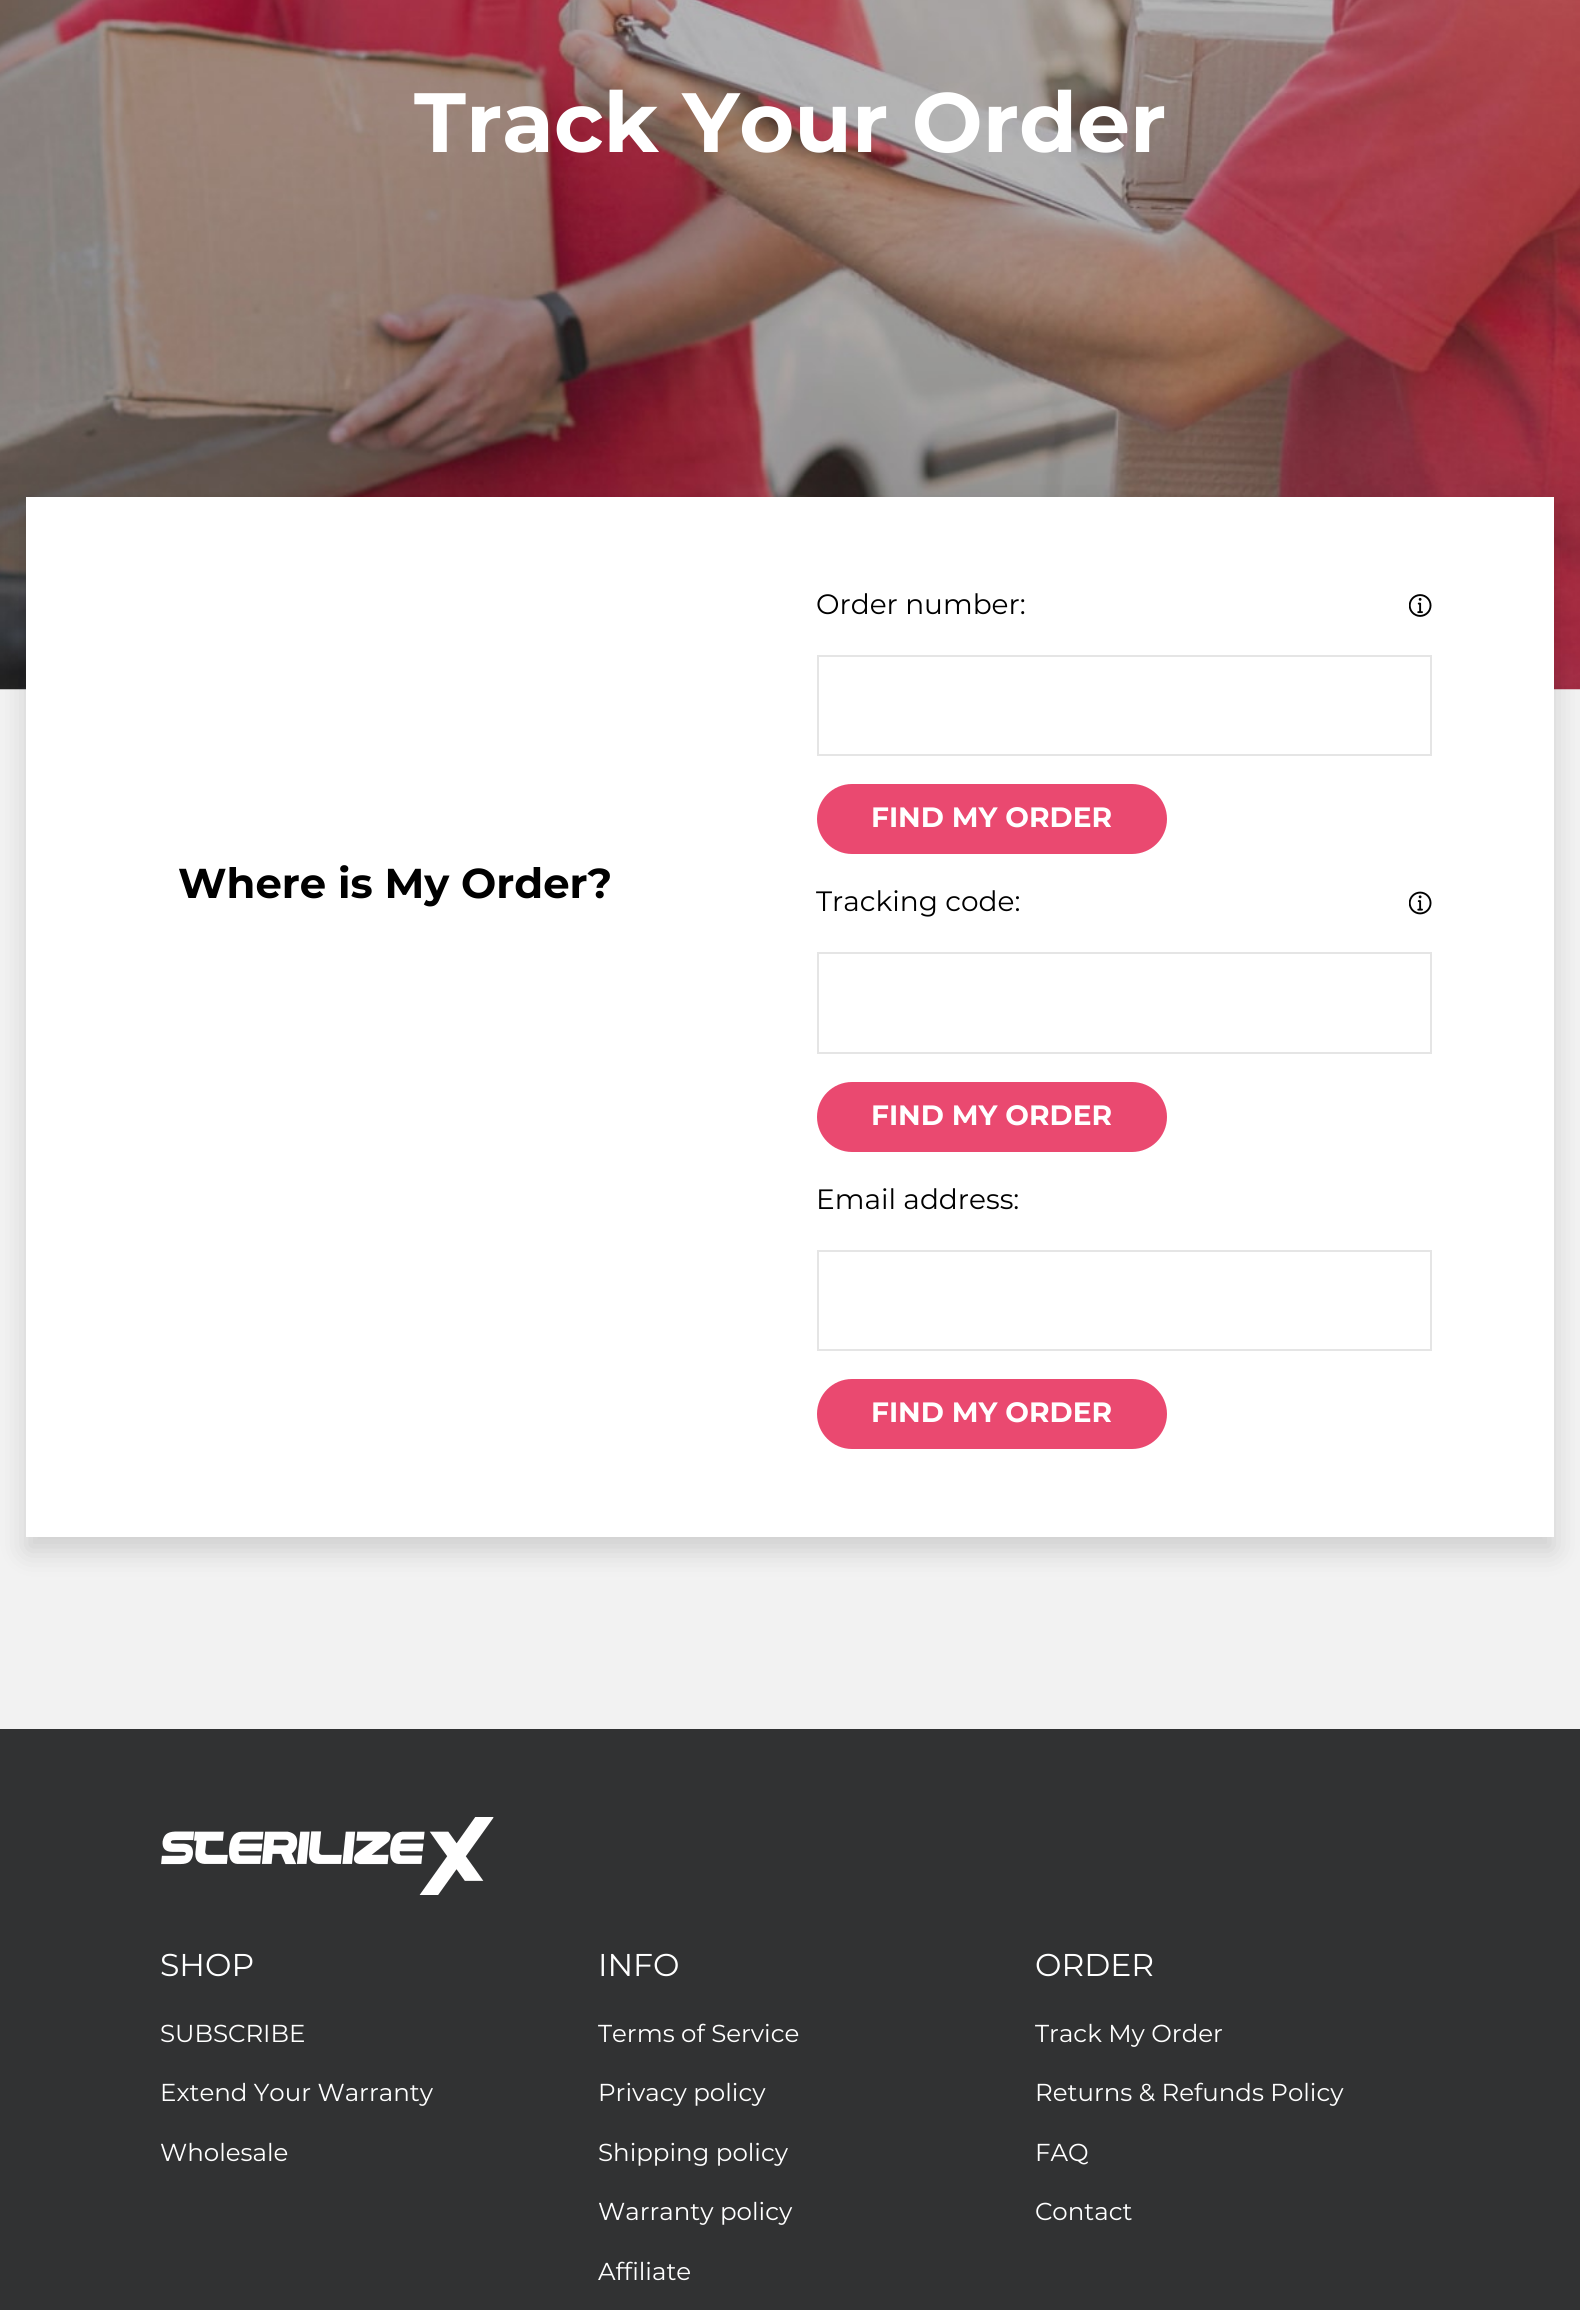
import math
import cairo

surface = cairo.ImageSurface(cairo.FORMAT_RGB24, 1580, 2310)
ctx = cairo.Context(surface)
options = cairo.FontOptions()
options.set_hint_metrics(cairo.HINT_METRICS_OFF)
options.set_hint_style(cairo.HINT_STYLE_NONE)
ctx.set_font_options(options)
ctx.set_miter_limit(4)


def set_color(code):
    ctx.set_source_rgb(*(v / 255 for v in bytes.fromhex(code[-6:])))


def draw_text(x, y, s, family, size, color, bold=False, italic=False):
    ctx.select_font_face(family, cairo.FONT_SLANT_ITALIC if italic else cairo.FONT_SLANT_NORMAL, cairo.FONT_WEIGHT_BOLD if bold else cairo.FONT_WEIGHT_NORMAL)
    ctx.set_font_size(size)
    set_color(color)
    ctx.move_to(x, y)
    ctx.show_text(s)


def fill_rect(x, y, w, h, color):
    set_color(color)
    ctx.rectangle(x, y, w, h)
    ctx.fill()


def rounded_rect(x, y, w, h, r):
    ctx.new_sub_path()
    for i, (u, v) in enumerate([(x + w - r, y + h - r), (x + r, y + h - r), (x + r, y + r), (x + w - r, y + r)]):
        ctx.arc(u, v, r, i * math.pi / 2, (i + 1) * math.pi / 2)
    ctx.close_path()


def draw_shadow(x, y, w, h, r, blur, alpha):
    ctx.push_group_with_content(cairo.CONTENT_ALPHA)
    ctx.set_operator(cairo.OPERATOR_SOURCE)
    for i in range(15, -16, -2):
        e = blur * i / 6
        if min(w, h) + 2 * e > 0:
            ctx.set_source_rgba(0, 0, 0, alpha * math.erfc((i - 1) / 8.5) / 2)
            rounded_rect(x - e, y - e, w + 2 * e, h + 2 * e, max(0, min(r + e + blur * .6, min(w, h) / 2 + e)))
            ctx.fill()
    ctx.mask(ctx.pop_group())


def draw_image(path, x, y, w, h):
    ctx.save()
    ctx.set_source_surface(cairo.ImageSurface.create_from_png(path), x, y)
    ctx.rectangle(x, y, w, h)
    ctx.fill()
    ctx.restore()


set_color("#f2f2f2")
ctx.paint()
draw_image("assets/img1.png", 0, 0, 1580, 690)
draw_text(414, 152, "Track Your Order", "Montserrat", 84, "#ffffff", bold=True)
set_color("#000000")
draw_shadow(26, 511, 1528, 1040, 0, 14, 0.15)
fill_rect(26, 497, 1528, 1040, "#ffffff")
draw_text(178, 898, "Where is My Order?", "Montserrat", 41.75, "#000000", bold=True)
draw_text(816, 614, "Order number:", "Montserrat", 28, "#000000")
draw_image("assets/img2.png", 1409, 594, 23, 23)
ctx.rectangle(818, 656, 613, 99)
set_color("#e5e5e5")
ctx.stroke()
set_color("#ea4970")
rounded_rect(817, 784, 350, 70, 35)
ctx.fill()
draw_text(871, 827, "FIND MY ORDER", "Montserrat", 28, "#ffffff", bold=True)
draw_text(816, 911, "Tracking code:", "Montserrat", 28, "#000000")
draw_image("assets/img3.png", 1409, 891, 23, 24)
ctx.rectangle(818, 953, 613, 100)
set_color("#e5e5e5")
ctx.stroke()
set_color("#ea4970")
rounded_rect(817, 1082, 350, 70, 35)
ctx.fill()
draw_text(871, 1125, "FIND MY ORDER", "Montserrat", 28, "#ffffff", bold=True)
draw_text(816, 1209, "Email address:", "Montserrat", 28, "#000000")
ctx.rectangle(818, 1251, 613, 99)
set_color("#e5e5e5")
ctx.stroke()
set_color("#ea4970")
rounded_rect(817, 1379, 350, 70, 35)
ctx.fill()
draw_text(871, 1422, "FIND MY ORDER", "Montserrat", 28, "#ffffff", bold=True)
fill_rect(0, 1729, 1580, 581, "#313233")
draw_image("assets/img4.png", 161, 1817, 333, 78)
draw_text(160, 1976, "SHOP", "Montserrat", 31.5, "#ffffff")
draw_text(160, 2042, "SUBSCRIBE", "Montserrat", 24.5, "#ffffff")
draw_text(160, 2101, "Extend Your Warranty", "Montserrat", 24.5, "#ffffff")
draw_text(160, 2161, "Wholesale", "Montserrat", 24.5, "#ffffff")
draw_text(598, 1976, "INFO", "Montserrat", 31.5, "#ffffff")
draw_text(598, 2042, "Terms of Service", "Montserrat", 24.5, "#ffffff")
draw_text(598, 2101, "Privacy policy", "Montserrat", 24.5, "#ffffff")
draw_text(598, 2161, "Shipping policy", "Montserrat", 24.5, "#ffffff")
draw_text(598, 2220, "Warranty policy", "Montserrat", 24.5, "#ffffff")
draw_text(598, 2280, "Affiliate", "Montserrat", 24.5, "#ffffff")
draw_text(1035, 1976, "ORDER", "Montserrat", 31.5, "#ffffff")
draw_text(1035, 2042, "Track My Order", "Montserrat", 24.5, "#ffffff")
draw_text(1035, 2101, "Returns & Refunds Policy", "Montserrat", 24.5, "#ffffff")
draw_text(1035, 2161, "FAQ", "Montserrat", 24.5, "#ffffff")
draw_text(1035, 2220, "Contact", "Montserrat", 24.5, "#ffffff")
surface.write_to_png("output.png")
